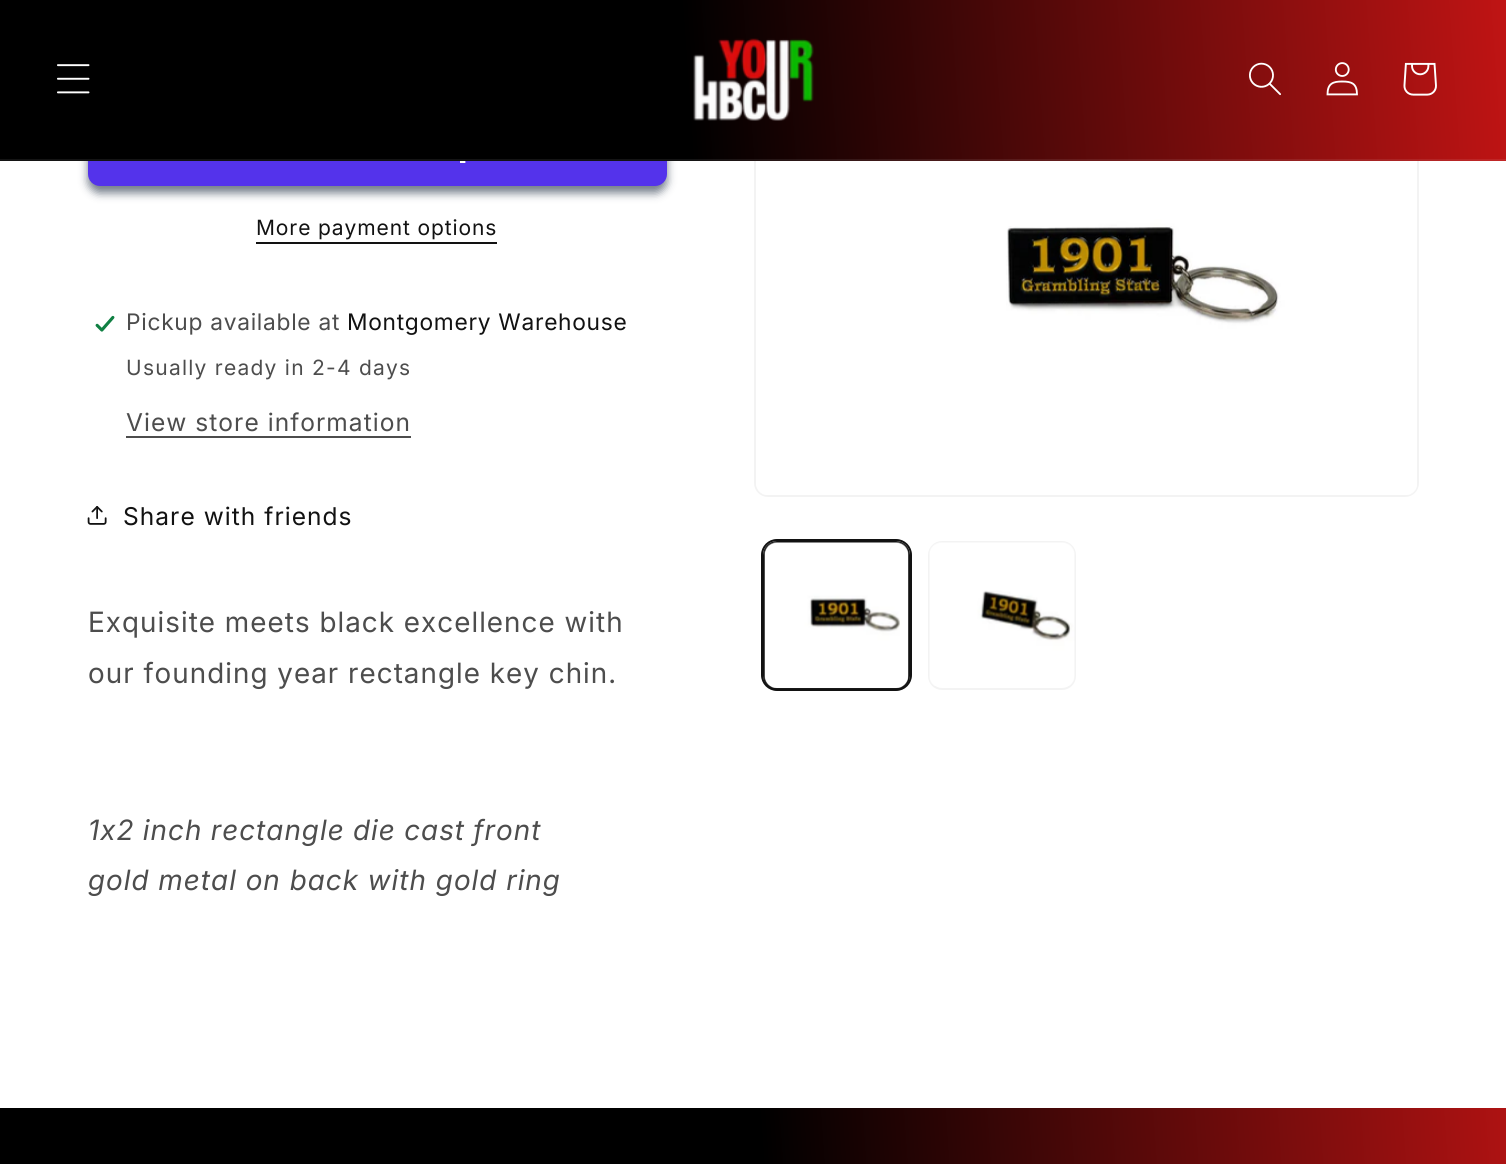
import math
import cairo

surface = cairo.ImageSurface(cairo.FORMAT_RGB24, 1506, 1164)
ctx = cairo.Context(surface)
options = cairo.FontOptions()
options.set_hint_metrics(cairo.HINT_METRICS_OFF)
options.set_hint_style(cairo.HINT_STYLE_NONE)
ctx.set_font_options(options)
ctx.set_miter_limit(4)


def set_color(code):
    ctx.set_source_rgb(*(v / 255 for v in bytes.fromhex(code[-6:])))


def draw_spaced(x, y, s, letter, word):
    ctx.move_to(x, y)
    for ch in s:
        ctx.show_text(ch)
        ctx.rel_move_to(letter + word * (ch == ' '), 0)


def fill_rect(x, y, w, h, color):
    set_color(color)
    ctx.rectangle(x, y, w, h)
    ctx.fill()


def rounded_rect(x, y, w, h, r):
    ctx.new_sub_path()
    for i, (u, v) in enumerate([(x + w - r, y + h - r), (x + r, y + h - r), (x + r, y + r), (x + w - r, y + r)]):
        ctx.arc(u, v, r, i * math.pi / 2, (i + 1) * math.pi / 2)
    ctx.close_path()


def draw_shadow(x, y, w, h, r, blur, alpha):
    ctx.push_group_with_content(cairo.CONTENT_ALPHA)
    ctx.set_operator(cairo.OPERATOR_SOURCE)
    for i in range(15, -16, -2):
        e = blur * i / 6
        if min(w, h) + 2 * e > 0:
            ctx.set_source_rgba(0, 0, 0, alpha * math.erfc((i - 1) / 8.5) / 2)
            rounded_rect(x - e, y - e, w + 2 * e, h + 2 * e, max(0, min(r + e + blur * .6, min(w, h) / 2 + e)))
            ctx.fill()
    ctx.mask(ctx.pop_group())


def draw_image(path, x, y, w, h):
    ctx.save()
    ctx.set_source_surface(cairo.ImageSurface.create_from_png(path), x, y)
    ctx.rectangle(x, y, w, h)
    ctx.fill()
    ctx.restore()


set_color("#ffffff")
ctx.paint()
set_color("#001128")
draw_shadow(88, 112, 579, 81, 12, 4.5, 0.55)
set_color("#5433eb")
rounded_rect(88, 105, 579, 81, 12)
ctx.fill()
rounded_rect(755, 54, 663, 442, 13)
set_color("#f3f3f3")
ctx.stroke()
gradient = cairo.LinearGradient(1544, 527, -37, 638)
gradient.add_color_stop_rgba(0, 0.753, 0.078, 0.078, 1)
gradient.add_color_stop_rgba(0.52, 0, 0, 0, 1)
gradient.add_color_stop_rgba(1, 0, 0, 0, 1)
ctx.set_source(gradient)
ctx.rectangle(0, 0, 1506, 161)
ctx.fill()
ctx.set_source_rgba(1, 1, 1, 0.08)
ctx.rectangle(0, 159, 1506, 2)
ctx.fill()
draw_image("assets/img1.png", 57, 64, 33, 30)
draw_image("assets/img2.png", 693, 38, 121, 83)
draw_image("assets/img3.png", 1249, 62, 32, 34)
draw_image("assets/img4.png", 1326, 62, 32, 34)
draw_image("assets/img5.png", 1403, 62, 34, 34)
draw_image("assets/img6.png", 460, 161, 6, 2)
ctx.select_font_face("Inter")
ctx.set_font_size(21)
set_color("#121212")
draw_spaced(256, 235, "More payment options", 0.9, 0)
fill_rect(256, 242, 241, 2, "#121212")
draw_image("assets/img7.png", 95, 315, 20, 17)
ctx.set_font_size(22.75)
set_color("#4d4d4d")
draw_spaced(126, 330, "Pickup available at", 0.7, 0)
set_color("#121212")
draw_spaced(347, 330, "Montgomery Warehouse", 0.7, 0)
ctx.set_font_size(21)
set_color("#4d4d4d")
draw_spaced(126, 375, "Usually ready in 2-4 days", 1.25, 0)
ctx.set_font_size(24.5)
draw_spaced(126, 431, "View store information", 1.05, 0)
fill_rect(126, 436, 285, 2, "#4d4d4d")
draw_image("assets/img8.png", 87, 506, 20, 19)
set_color("#121212")
draw_spaced(123, 525, "Share with friends", 1.05, 0)
ctx.select_font_face("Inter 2")
ctx.set_font_size(28)
set_color("#4d4d4d")
draw_spaced(88, 632, "Exquisite meets black excellence with", 1.05, 0)
draw_spaced(88, 683, "our founding year rectangle key chin.", 1.05, 0)
ctx.select_font_face("Inter", cairo.FONT_SLANT_ITALIC)
draw_spaced(88, 840, "1x2 inch rectangle die cast front", 1.05, -0.5)
draw_spaced(88, 890, "gold metal on back with gold ring", 1.05, 0)
draw_image("assets/img9.png", 756, 161, 661, 334)
rounded_rect(762, 540, 149, 150, 15)
set_color("#121212")
ctx.stroke()
rounded_rect(764, 542, 145, 147, 13)
ctx.stroke()
draw_image("assets/img10.png", 764, 542, 145, 147)
rounded_rect(929, 542, 146, 147, 13)
set_color("#f3f3f3")
ctx.stroke()
draw_image("assets/img11.png", 929, 542, 146, 144)
gradient = cairo.LinearGradient(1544, 527, -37, 638)
gradient.add_color_stop_rgba(0, 0.753, 0.078, 0.078, 1)
gradient.add_color_stop_rgba(0.52, 0, 0, 0, 1)
gradient.add_color_stop_rgba(1, 0, 0, 0, 1)
ctx.set_source(gradient)
ctx.rectangle(0, 1108, 1506, 56)
ctx.fill()
surface.write_to_png("output.png")
